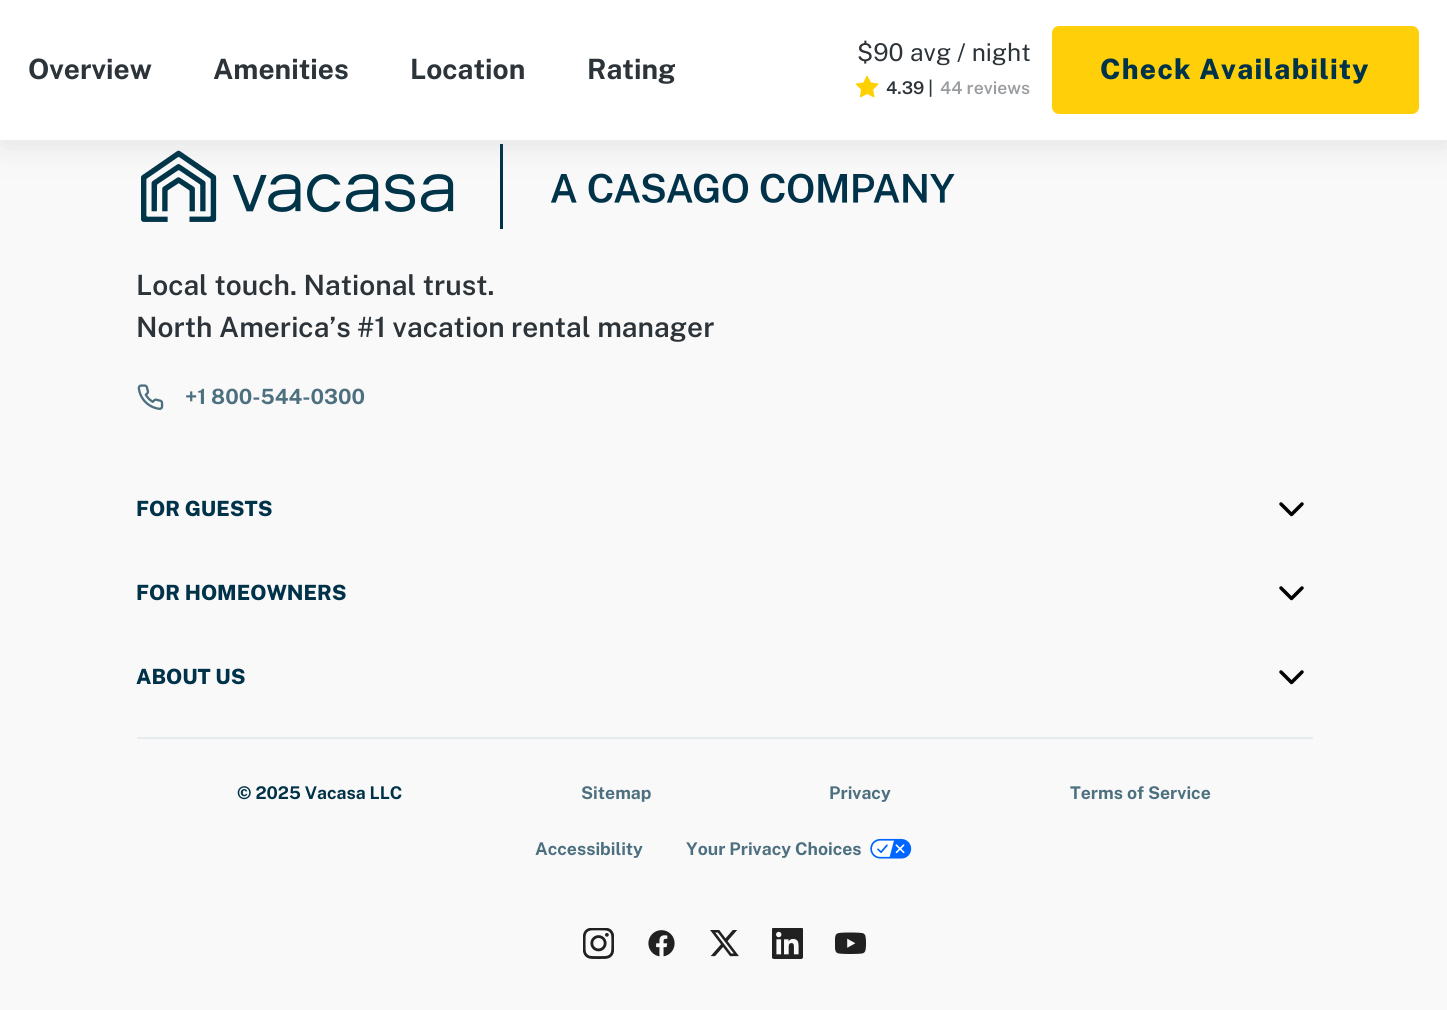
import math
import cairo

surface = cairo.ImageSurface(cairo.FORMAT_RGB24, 1447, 1010)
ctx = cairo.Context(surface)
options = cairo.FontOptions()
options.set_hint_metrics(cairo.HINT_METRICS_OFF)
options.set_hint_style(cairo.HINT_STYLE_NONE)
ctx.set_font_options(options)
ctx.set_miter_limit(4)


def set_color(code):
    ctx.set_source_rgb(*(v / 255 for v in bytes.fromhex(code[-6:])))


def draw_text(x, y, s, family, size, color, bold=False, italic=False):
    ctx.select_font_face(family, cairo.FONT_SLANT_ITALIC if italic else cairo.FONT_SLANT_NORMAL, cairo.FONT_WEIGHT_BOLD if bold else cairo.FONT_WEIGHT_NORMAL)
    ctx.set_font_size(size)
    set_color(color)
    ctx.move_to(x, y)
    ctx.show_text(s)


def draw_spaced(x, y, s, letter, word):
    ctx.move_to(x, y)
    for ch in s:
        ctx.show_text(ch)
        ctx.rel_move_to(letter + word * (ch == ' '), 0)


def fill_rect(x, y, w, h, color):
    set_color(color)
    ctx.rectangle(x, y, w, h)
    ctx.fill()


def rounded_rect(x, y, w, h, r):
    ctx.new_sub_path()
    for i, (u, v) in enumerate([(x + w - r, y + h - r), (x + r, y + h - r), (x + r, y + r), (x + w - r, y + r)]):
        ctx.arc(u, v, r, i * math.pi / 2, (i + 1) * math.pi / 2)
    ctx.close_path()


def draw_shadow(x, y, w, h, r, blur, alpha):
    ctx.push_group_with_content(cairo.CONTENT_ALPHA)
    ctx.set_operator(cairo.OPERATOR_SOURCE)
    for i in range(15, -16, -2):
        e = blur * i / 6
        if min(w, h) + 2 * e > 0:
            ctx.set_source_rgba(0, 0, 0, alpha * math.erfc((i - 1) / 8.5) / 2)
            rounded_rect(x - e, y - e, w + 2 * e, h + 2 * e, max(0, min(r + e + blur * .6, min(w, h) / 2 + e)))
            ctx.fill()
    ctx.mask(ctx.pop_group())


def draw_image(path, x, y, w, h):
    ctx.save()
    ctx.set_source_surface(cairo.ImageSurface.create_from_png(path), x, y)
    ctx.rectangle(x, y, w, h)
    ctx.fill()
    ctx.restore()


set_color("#faf9f9")
ctx.paint()
draw_image("assets/img2.png", 141, 144, 814, 85)
set_color("#707579")
draw_shadow(2, 2, 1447, 140, 0, 17.5, 0.2)
fill_rect(0, 0, 1447, 140, "#ffffff")
draw_text(28, 79, "Overview", "Public Sans", 28, "#2c3439", bold=True)
draw_text(213, 79, "Amenities", "Public Sans", 28, "#2c3439", bold=True)
draw_text(410, 79, "Location", "Public Sans", 28, "#2c3439", bold=True)
draw_text(587, 79, "Rating", "Public Sans", 28, "#2c3439", bold=True)
draw_text(857, 61, "$90", "Public Sans", 24.5, "#2c3439")
draw_text(910, 61, "avg / night", "Public Sans", 24.5, "#2c3439")
draw_image("assets/img1.png", 855, 75, 24, 23)
draw_text(886, 94, "4.39 |", "Public Sans SemiBold", 17.5, "#2c3439")
draw_text(940, 94, "44 reviews", "Public Sans SemiBold", 17.5, "#9b9ea0")
set_color("#ffd00a")
rounded_rect(1052, 26, 367, 88, 7)
ctx.fill()
ctx.select_font_face("Public Sans ExtraBold")
ctx.set_font_size(28)
set_color("#003349")
draw_spaced(1100, 79, "Check Availability", 1.3, 0)
draw_text(136, 295, "Local touch. National trust.", "Public Sans SemiBold", 28, "#2c3439")
draw_text(136, 337, "North America’s #1 vacation rental manager", "Public Sans SemiBold", 28, "#2c3439")
draw_image("assets/img3.png", 137, 384, 27, 26)
draw_text(185, 404, "+1 800-544-0300", "Public Sans", 21, "#4d7080", bold=True)
draw_text(136, 516, "FOR GUESTS", "Public Sans ExtraBold", 21, "#003349")
draw_image("assets/img4.png", 1279, 502, 25, 15)
draw_text(136, 600, "FOR HOMEOWNERS", "Public Sans ExtraBold", 21, "#003349")
draw_image("assets/img4.png", 1279, 586, 25, 15)
draw_text(136, 684, "ABOUT US", "Public Sans ExtraBold", 21, "#003349")
draw_image("assets/img4.png", 1279, 670, 25, 15)
fill_rect(137, 737, 1176, 2, "#e6ebed")
draw_text(237, 799, "© 2025 Vacasa LLC", "Public Sans", 17.5, "#003349", bold=True)
draw_text(581, 799, "Sitemap", "Public Sans", 17.5, "#4d7080", bold=True)
draw_text(829, 799, "Privacy", "Public Sans", 17.5, "#4d7080", bold=True)
draw_text(1070, 799, "Terms of Service", "Public Sans", 17.5, "#4d7080", bold=True)
draw_text(535, 855, "Accessibility", "Public Sans", 17.5, "#4d7080", bold=True)
draw_text(686, 855, "Your Privacy Choices", "Public Sans", 17.5, "#4d7080", bold=True)
draw_image("assets/img5.png", 870, 838, 42, 21)
draw_image("assets/img6.png", 583, 928, 31, 31)
draw_image("assets/img7.png", 648, 930, 27, 27)
draw_image("assets/img8.png", 710, 930, 29, 27)
draw_image("assets/img9.png", 772, 928, 31, 31)
draw_image("assets/img10.png", 835, 932, 31, 22)
surface.write_to_png("output.png")
